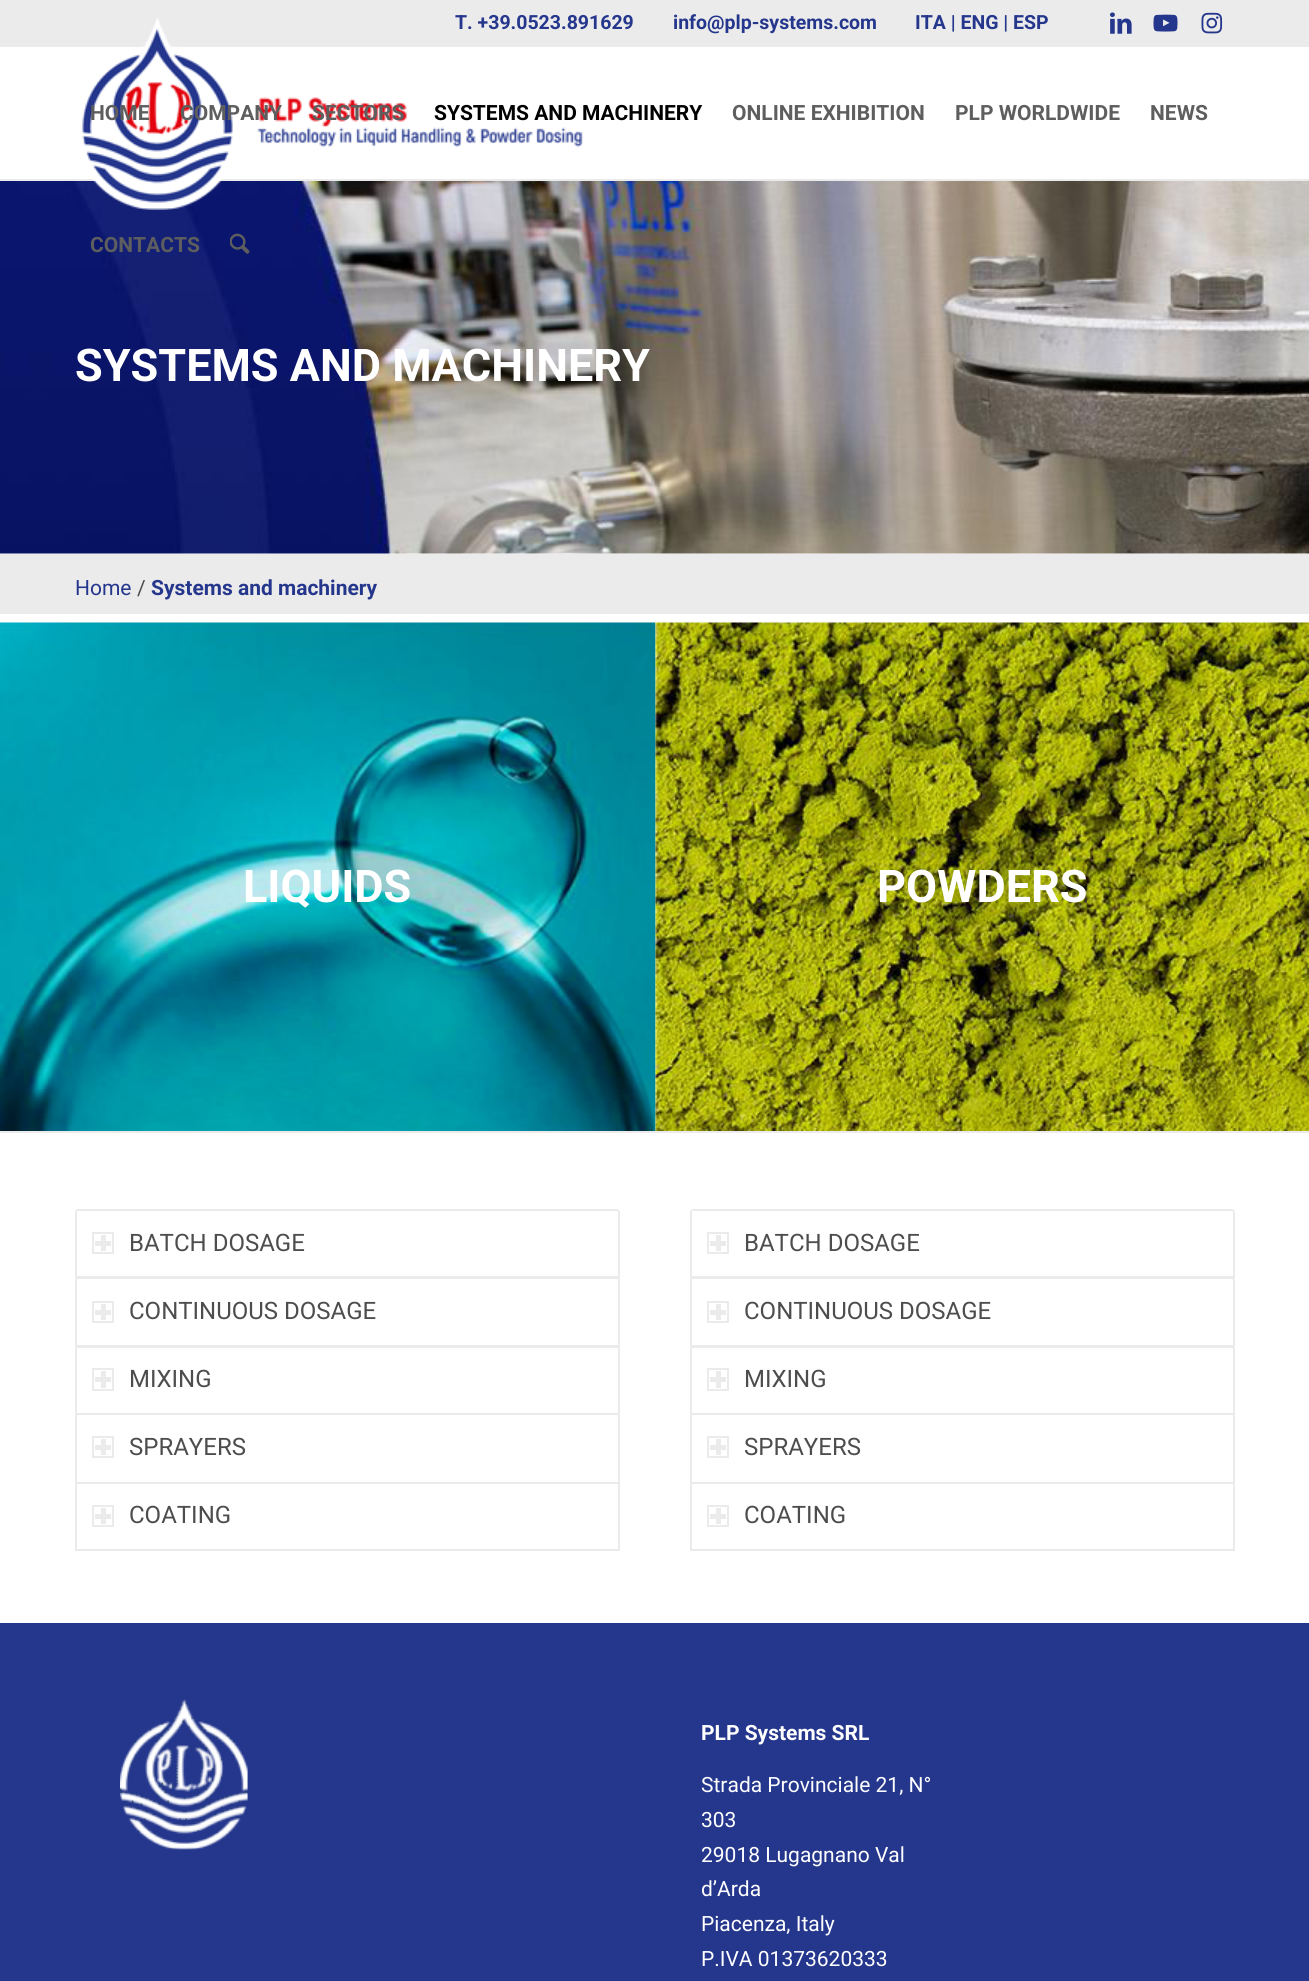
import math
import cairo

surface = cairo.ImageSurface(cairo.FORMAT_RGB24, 1309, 1981)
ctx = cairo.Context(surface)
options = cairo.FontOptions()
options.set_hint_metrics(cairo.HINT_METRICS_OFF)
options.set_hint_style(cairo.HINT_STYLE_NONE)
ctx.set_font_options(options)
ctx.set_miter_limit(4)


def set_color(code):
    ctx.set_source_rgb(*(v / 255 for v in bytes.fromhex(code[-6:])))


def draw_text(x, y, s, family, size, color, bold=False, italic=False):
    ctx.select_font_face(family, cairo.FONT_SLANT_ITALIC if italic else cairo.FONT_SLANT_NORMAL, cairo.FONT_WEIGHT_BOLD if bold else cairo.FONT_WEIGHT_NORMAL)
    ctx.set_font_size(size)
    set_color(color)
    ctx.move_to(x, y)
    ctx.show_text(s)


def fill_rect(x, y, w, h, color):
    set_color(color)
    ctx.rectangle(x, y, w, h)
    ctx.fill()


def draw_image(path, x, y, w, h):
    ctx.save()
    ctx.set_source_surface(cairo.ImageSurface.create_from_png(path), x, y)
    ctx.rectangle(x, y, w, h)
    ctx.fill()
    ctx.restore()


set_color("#ffffff")
ctx.paint()
fill_rect(0, 0, 1309, 47, "#ebebeb")
draw_text(455, 29, "T. +39.0523.891629", "Roboto", 19.5, "#25368d", bold=True)
draw_text(673, 29, "info@plp-systems.com", "Roboto", 19.5, "#25368d", bold=True)
draw_text(915, 29, "ITA | ENG | ESP", "Roboto", 19.5, "#25368d", bold=True)
draw_image("assets/img1.png", 1110, 12, 22, 22)
draw_image("assets/img2.png", 1153, 14, 25, 18)
draw_image("assets/img3.png", 1201, 12, 22, 22)
fill_rect(0, 179, 1309, 2, "#ebebeb")
draw_image("assets/img6.png", 0, 181, 1309, 373)
draw_image("assets/img4.png", 82, 18, 501, 192)
draw_text(90, 120, "HOME", "Roboto", 21, "#5e5e5e", bold=True)
draw_text(180, 120, "COMPANY", "Roboto", 21, "#5e5e5e", bold=True)
draw_text(312, 120, "SECTORS", "Roboto", 21, "#5e5e5e", bold=True)
draw_text(434, 120, "SYSTEMS AND MACHINERY", "Roboto", 21, "#000000", bold=True)
draw_text(732, 120, "ONLINE EXHIBITION", "Roboto", 21, "#5e5e5e", bold=True)
draw_text(955, 120, "PLP WORLDWIDE", "Roboto", 21, "#5e5e5e", bold=True)
draw_text(1150, 120, "NEWS", "Roboto", 21, "#5e5e5e", bold=True)
draw_text(90, 252, "CONTACTS", "Roboto", 21, "#5e5e5e", bold=True)
draw_image("assets/img5.png", 230, 233, 20, 21)
draw_text(75, 381, "SYSTEMS AND MACHINERY", "Roboto", 45, "#ffffff", bold=True)
fill_rect(0, 554, 1309, 60, "#ebebeb")
draw_text(75, 595, "Home", "Roboto", 21, "#25368d")
draw_text(137, 595, "/", "Roboto", 21, "#4d4d4d")
draw_text(151, 595, "Systems and machinery", "Roboto", 21, "#25368d", bold=True)
draw_image("assets/img7.png", 0, 621, 656, 510)
draw_text(243, 902, "LIQUIDS", "Roboto", 45, "#ffffff", bold=True)
draw_image("assets/img8.png", 655, 621, 654, 510)
draw_text(877, 902, "POWDERS", "Roboto", 45, "#ffffff", bold=True)
fill_rect(0, 1131, 1309, 2, "#ebebeb")
ctx.new_path()
ctx.move_to(78, 1210)
ctx.line_to(617, 1210)
ctx.curve_to(618, 1210, 619, 1211, 619, 1212)
ctx.line_to(619, 1277)
ctx.line_to(76, 1277)
ctx.line_to(76, 1212)
ctx.curve_to(76, 1211, 77, 1210, 78, 1210)
ctx.close_path()
ctx.stroke()
ctx.rectangle(93, 1233, 20, 20)
ctx.stroke()
fill_rect(101, 1235, 5, 16, "#ebebeb")
fill_rect(95, 1241, 16, 5, "#ebebeb")
draw_text(129, 1251, "BATCH DOSAGE", "Roboto", 24, "#4d4d4d")
set_color("#ffffff")
ctx.new_path()
ctx.move_to(78, 1278)
ctx.line_to(617, 1278)
ctx.curve_to(618, 1278, 619, 1279, 619, 1280)
ctx.line_to(619, 1346)
ctx.line_to(76, 1346)
ctx.line_to(76, 1280)
ctx.curve_to(76, 1279, 77, 1278, 78, 1278)
ctx.close_path()
ctx.fill_preserve()
set_color("#ebebeb")
ctx.stroke()
ctx.rectangle(93, 1302, 20, 20)
ctx.stroke()
fill_rect(101, 1304, 5, 16, "#ebebeb")
fill_rect(95, 1310, 16, 5, "#ebebeb")
draw_text(129, 1319, "CONTINUOUS DOSAGE", "Roboto", 24, "#4d4d4d")
set_color("#ffffff")
ctx.new_path()
ctx.move_to(78, 1347)
ctx.line_to(617, 1347)
ctx.curve_to(618, 1347, 619, 1348, 619, 1349)
ctx.line_to(619, 1414)
ctx.line_to(76, 1414)
ctx.line_to(76, 1349)
ctx.curve_to(76, 1348, 77, 1347, 78, 1347)
ctx.close_path()
ctx.fill_preserve()
set_color("#ebebeb")
ctx.stroke()
ctx.rectangle(93, 1369, 20, 21)
ctx.stroke()
fill_rect(101, 1371, 5, 17, "#ebebeb")
fill_rect(95, 1377, 16, 5, "#ebebeb")
draw_text(129, 1387, "MIXING", "Roboto", 24, "#4d4d4d")
set_color("#ffffff")
ctx.new_path()
ctx.move_to(78, 1414)
ctx.line_to(617, 1414)
ctx.curve_to(618, 1414, 619, 1415, 619, 1416)
ctx.line_to(619, 1483)
ctx.line_to(76, 1483)
ctx.line_to(76, 1416)
ctx.curve_to(76, 1415, 77, 1414, 78, 1414)
ctx.close_path()
ctx.fill_preserve()
set_color("#ebebeb")
ctx.stroke()
ctx.rectangle(93, 1437, 20, 20)
ctx.stroke()
fill_rect(101, 1439, 5, 16, "#ebebeb")
fill_rect(95, 1445, 16, 5, "#ebebeb")
draw_text(129, 1455, "SPRAYERS", "Roboto", 24, "#4d4d4d")
set_color("#ffffff")
ctx.new_path()
ctx.move_to(78, 1483)
ctx.line_to(617, 1483)
ctx.curve_to(618, 1483, 619, 1484, 619, 1485)
ctx.line_to(619, 1550)
ctx.line_to(76, 1550)
ctx.line_to(76, 1485)
ctx.curve_to(76, 1484, 77, 1483, 78, 1483)
ctx.close_path()
ctx.fill_preserve()
set_color("#ebebeb")
ctx.stroke()
ctx.rectangle(93, 1506, 20, 20)
ctx.stroke()
fill_rect(101, 1508, 5, 16, "#ebebeb")
fill_rect(95, 1514, 16, 5, "#ebebeb")
draw_text(129, 1523, "COATING", "Roboto", 24, "#4d4d4d")
ctx.new_path()
ctx.move_to(693, 1210)
ctx.line_to(1232, 1210)
ctx.curve_to(1233, 1210, 1234, 1211, 1234, 1212)
ctx.line_to(1234, 1277)
ctx.line_to(691, 1277)
ctx.line_to(691, 1212)
ctx.curve_to(691, 1211, 692, 1210, 693, 1210)
ctx.close_path()
set_color("#ebebeb")
ctx.stroke()
ctx.rectangle(708, 1233, 20, 20)
ctx.stroke()
fill_rect(716, 1235, 5, 16, "#ebebeb")
fill_rect(710, 1241, 16, 5, "#ebebeb")
draw_text(744, 1251, "BATCH DOSAGE", "Roboto", 24, "#4d4d4d")
set_color("#ffffff")
ctx.new_path()
ctx.move_to(693, 1278)
ctx.line_to(1232, 1278)
ctx.curve_to(1233, 1278, 1234, 1279, 1234, 1280)
ctx.line_to(1234, 1346)
ctx.line_to(691, 1346)
ctx.line_to(691, 1280)
ctx.curve_to(691, 1279, 692, 1278, 693, 1278)
ctx.close_path()
ctx.fill_preserve()
set_color("#ebebeb")
ctx.stroke()
ctx.rectangle(708, 1302, 20, 20)
ctx.stroke()
fill_rect(716, 1304, 5, 16, "#ebebeb")
fill_rect(710, 1310, 16, 5, "#ebebeb")
draw_text(744, 1319, "CONTINUOUS DOSAGE", "Roboto", 24, "#4d4d4d")
set_color("#ffffff")
ctx.new_path()
ctx.move_to(693, 1347)
ctx.line_to(1232, 1347)
ctx.curve_to(1233, 1347, 1234, 1348, 1234, 1349)
ctx.line_to(1234, 1414)
ctx.line_to(691, 1414)
ctx.line_to(691, 1349)
ctx.curve_to(691, 1348, 692, 1347, 693, 1347)
ctx.close_path()
ctx.fill_preserve()
set_color("#ebebeb")
ctx.stroke()
ctx.rectangle(708, 1369, 20, 21)
ctx.stroke()
fill_rect(716, 1371, 5, 17, "#ebebeb")
fill_rect(710, 1377, 16, 5, "#ebebeb")
draw_text(744, 1387, "MIXING", "Roboto", 24, "#4d4d4d")
set_color("#ffffff")
ctx.new_path()
ctx.move_to(693, 1414)
ctx.line_to(1232, 1414)
ctx.curve_to(1233, 1414, 1234, 1415, 1234, 1416)
ctx.line_to(1234, 1483)
ctx.line_to(691, 1483)
ctx.line_to(691, 1416)
ctx.curve_to(691, 1415, 692, 1414, 693, 1414)
ctx.close_path()
ctx.fill_preserve()
set_color("#ebebeb")
ctx.stroke()
ctx.rectangle(708, 1437, 20, 20)
ctx.stroke()
fill_rect(716, 1439, 5, 16, "#ebebeb")
fill_rect(710, 1445, 16, 5, "#ebebeb")
draw_text(744, 1455, "SPRAYERS", "Roboto", 24, "#4d4d4d")
set_color("#ffffff")
ctx.new_path()
ctx.move_to(693, 1483)
ctx.line_to(1232, 1483)
ctx.curve_to(1233, 1483, 1234, 1484, 1234, 1485)
ctx.line_to(1234, 1550)
ctx.line_to(691, 1550)
ctx.line_to(691, 1485)
ctx.curve_to(691, 1484, 692, 1483, 693, 1483)
ctx.close_path()
ctx.fill_preserve()
set_color("#ebebeb")
ctx.stroke()
ctx.rectangle(708, 1506, 20, 20)
ctx.stroke()
fill_rect(716, 1508, 5, 16, "#ebebeb")
fill_rect(710, 1514, 16, 5, "#ebebeb")
draw_text(744, 1523, "COATING", "Roboto", 24, "#4d4d4d")
fill_rect(0, 1623, 1309, 358, "#25378d")
draw_image("assets/img9.png", 120, 1699, 128, 151)
draw_text(701, 1740, "PLP Systems SRL", "Roboto", 21, "#ffffff", bold=True)
draw_text(701, 1792, "Strada Provinciale 21, N°", "Roboto", 21, "#ffffff")
draw_text(701, 1827, "303", "Roboto", 21, "#ffffff")
draw_text(701, 1862, "29018 Lugagnano Val", "Roboto", 21, "#ffffff")
draw_text(701, 1896, "d’Arda", "Roboto", 21, "#ffffff")
draw_text(701, 1931, "Piacenza, Italy", "Roboto", 21, "#ffffff")
draw_text(701, 1966, "P.IVA 01373620333", "Roboto", 21, "#ffffff")
surface.write_to_png("output.png")
